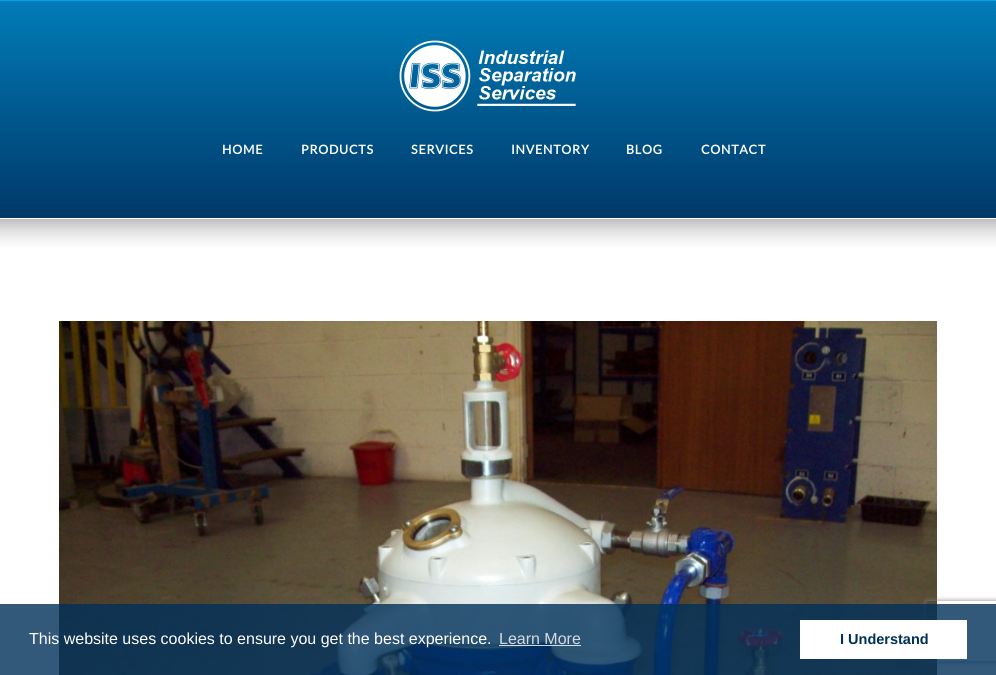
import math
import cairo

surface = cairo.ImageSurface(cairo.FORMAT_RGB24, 996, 675)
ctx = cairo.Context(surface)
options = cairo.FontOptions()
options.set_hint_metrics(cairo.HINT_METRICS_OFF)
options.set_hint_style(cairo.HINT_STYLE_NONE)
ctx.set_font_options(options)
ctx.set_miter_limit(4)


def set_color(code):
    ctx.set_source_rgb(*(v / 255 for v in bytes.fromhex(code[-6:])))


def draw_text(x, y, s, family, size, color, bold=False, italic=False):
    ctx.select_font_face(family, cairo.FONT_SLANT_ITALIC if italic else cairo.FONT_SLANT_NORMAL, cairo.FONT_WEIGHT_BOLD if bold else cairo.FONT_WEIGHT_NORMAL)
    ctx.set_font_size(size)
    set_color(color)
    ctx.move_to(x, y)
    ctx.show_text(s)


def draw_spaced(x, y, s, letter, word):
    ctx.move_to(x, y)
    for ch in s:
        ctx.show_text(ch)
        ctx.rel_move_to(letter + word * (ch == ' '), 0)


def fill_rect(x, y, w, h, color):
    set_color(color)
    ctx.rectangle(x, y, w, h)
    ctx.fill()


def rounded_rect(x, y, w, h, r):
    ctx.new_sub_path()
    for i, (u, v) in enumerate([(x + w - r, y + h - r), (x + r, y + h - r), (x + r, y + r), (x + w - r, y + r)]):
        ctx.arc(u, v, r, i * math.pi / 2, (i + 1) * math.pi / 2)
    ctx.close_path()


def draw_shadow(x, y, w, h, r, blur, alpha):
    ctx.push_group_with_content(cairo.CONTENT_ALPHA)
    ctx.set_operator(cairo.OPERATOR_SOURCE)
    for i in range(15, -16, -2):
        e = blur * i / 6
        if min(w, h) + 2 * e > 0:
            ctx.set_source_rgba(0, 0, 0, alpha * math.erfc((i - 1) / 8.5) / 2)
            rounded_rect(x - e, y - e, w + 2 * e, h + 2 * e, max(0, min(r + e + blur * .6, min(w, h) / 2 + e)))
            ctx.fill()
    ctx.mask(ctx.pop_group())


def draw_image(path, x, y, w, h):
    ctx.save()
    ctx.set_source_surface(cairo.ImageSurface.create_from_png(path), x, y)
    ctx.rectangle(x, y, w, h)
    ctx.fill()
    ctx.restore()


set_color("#ffffff")
ctx.paint()
gradient = cairo.LinearGradient(498, 1, 498, 218)
gradient.add_color_stop_rgba(0, 0, 0.486, 0.718, 1)
gradient.add_color_stop_rgba(1, 0, 0.22, 0.412, 1)
ctx.set_source(gradient)
ctx.rectangle(0, 1, 996, 217)
ctx.fill()
fill_rect(0, 0, 996, 1, "#00a2ed")
draw_image("assets/img1.png", 399, 40, 177, 72)
ctx.select_font_face("Lato", cairo.FONT_SLANT_NORMAL, cairo.FONT_WEIGHT_BOLD)
ctx.set_font_size(12.5)
set_color("#ffffff")
draw_spaced(222, 154, "HOME", 0.75, 0)
draw_spaced(301, 154, "PRODUCTS", 0.75, 0)
draw_spaced(411, 154, "SERVICES", 0.75, 0)
draw_spaced(511, 154, "INVENTORY", 0.75, 0)
draw_spaced(626, 154, "BLOG", 0.75, 0)
draw_spaced(701, 154, "CONTACT", 0.75, 0)
draw_image("assets/img2.png", 0, 219, 996, 28)
draw_image("assets/img3.png", 59, 321, 878, 354)
ctx.save()
ctx.set_fill_rule(cairo.FILL_RULE_EVEN_ODD)
ctx.new_path()
ctx.move_to(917, 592)
ctx.line_to(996, 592)
ctx.line_to(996, 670)
ctx.line_to(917, 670)
ctx.close_path()
ctx.move_to(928, 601)
ctx.line_to(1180, 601)
ctx.curve_to(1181, 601, 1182, 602, 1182, 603)
ctx.line_to(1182, 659)
ctx.curve_to(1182, 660, 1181, 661, 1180, 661)
ctx.line_to(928, 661)
ctx.curve_to(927, 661, 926, 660, 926, 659)
ctx.line_to(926, 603)
ctx.curve_to(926, 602, 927, 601, 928, 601)
ctx.close_path()
ctx.clip()
set_color("#808080")
draw_shadow(926, 601, 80, 60, 2, 2.5, 1)
ctx.restore()
ctx.set_source_rgba(0, 0.188, 0.349, 0.8)
ctx.rectangle(0, 604, 996, 71)
ctx.fill()
draw_text(29, 644, "This website uses cookies to ensure you get the best experience.", "Liberation Sans", 16, "#ffffff")
draw_text(499, 644, "Learn More", "Liberation Sans", 16, "#d4dce3")
ctx.set_source_rgba(1, 1, 1, 0.8)
ctx.rectangle(499, 645, 82, 1)
ctx.fill()
fill_rect(800, 620, 167, 39, "#ffffff")
draw_text(840, 644, "I Understand", "Liberation Sans", 14.5, "#003059", bold=True)
surface.write_to_png("output.png")
